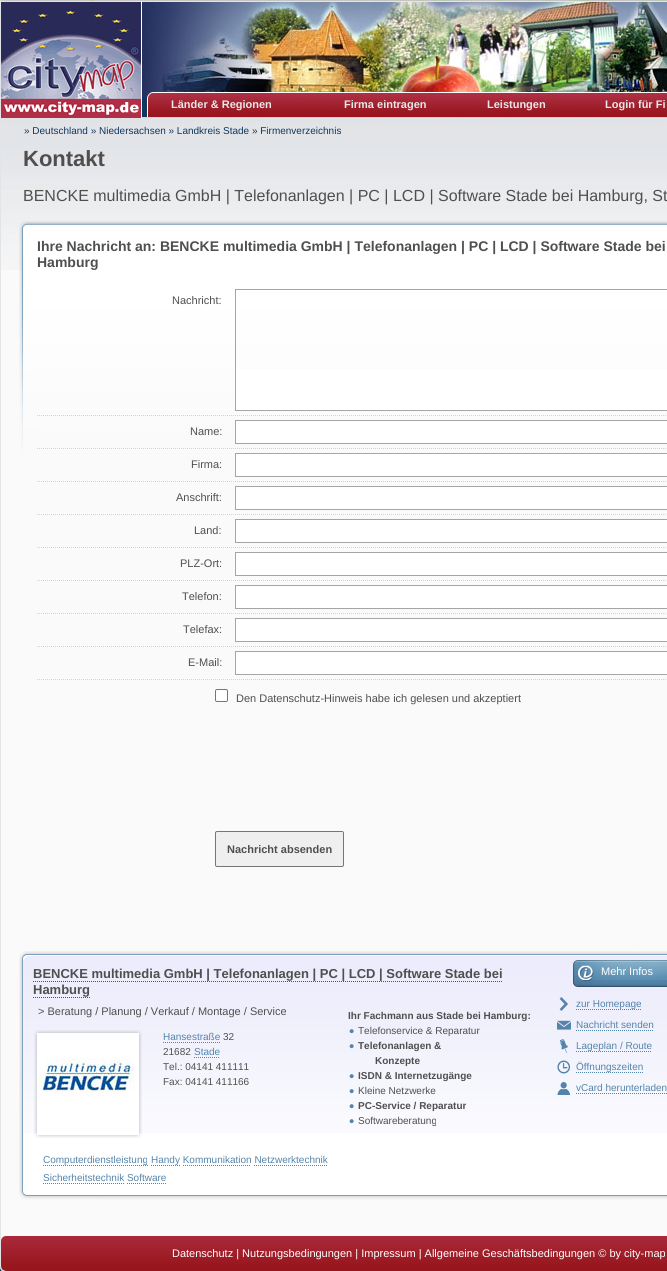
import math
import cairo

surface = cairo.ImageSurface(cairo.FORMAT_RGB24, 667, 1271)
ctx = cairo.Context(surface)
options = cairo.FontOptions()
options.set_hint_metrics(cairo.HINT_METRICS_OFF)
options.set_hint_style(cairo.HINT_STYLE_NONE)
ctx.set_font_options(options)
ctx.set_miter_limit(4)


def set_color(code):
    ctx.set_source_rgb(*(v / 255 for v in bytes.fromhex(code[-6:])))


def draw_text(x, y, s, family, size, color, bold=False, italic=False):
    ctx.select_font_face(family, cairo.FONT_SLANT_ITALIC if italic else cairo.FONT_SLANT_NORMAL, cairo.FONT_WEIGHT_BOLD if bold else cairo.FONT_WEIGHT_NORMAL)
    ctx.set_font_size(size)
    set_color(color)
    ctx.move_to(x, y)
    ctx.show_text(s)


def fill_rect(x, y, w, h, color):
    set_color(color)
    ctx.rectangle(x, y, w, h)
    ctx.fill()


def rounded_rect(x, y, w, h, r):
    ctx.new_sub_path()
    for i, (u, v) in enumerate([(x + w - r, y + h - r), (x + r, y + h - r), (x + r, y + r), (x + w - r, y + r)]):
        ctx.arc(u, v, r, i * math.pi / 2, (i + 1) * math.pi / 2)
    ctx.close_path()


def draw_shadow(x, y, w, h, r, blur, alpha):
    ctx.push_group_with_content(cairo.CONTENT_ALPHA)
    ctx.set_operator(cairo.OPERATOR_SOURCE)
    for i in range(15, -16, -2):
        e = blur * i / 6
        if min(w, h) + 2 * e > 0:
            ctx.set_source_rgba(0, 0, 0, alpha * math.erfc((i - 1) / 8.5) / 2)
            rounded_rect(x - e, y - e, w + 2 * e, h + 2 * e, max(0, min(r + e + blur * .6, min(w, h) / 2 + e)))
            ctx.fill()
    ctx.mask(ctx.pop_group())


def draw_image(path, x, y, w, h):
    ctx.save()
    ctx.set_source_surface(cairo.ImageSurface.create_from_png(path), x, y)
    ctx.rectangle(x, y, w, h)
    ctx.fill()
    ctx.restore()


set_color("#0e4b75")
ctx.paint()
draw_image("assets/img1.png", 0, 0, 667, 1)
set_color("#000000")
draw_shadow(-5, -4, 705, 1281, 10, 7.5, 0.3)
set_color("#fafafa")
ctx.new_path()
ctx.move_to(0.5, 1.5)
ctx.line_to(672.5, 1.5)
ctx.line_to(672.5, 1267)
ctx.curve_to(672.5, 1269.5, 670.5, 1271.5, 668, 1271.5)
ctx.line_to(5, 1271.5)
ctx.curve_to(2.5, 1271.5, 0.5, 1269.5, 0.5, 1267)
ctx.close_path()
ctx.fill_preserve()
set_color("#e3e4e8")
ctx.set_line_width(1)
ctx.stroke()
fill_rect(141, 2, 1, 116, "#ffffff")
draw_image("assets/img2.png", 1, 2, 140, 97)
draw_image("assets/img3.png", 1, 99, 140, 19)
fill_rect(142, 98, 5, 19, "#0e3960")
draw_image("assets/img4.png", 142, 2, 525, 96)
draw_image("assets/img5.png", 147, 92, 520, 25)
fill_rect(142, 117, 525, 1, "#d3d3d3")
draw_text(171, 108, "Länder & Regionen", "Liberation Sans", 11, "#e8e8e8", bold=True)
draw_text(344, 108, "Firma eintragen", "Liberation Sans", 11, "#e8e8e8", bold=True)
draw_text(487, 108, "Leistungen", "Liberation Sans", 11, "#e8e8e8", bold=True)
draw_text(605, 108, "Login für Fi", "Liberation Sans", 11, "#e8e8e8", bold=True)
draw_image("assets/img6.png", 1, 118, 666, 152)
draw_text(24, 134, "» Deutschland » Niedersachsen » Landkreis Stade » Firmenverzeichnis", "Liberation Sans", 10, "#0e385f")
draw_text(23, 166, "Kontakt", "Liberation Sans", 22, "#4f4f4f", bold=True)
draw_text(23, 201, "BENCKE multimedia GmbH | Telefonanlagen | PC | LCD | Software Stade bei Hamburg, St", "Liberation Sans", 16, "#4f4f4f")
draw_image("assets/img7.png", 19, 221, 648, 236)
draw_text(37, 251, "Ihre Nachricht an: BENCKE multimedia GmbH | Telefonanlagen | PC | LCD | Software Stade bei", "Liberation Sans", 14, "#4f4f4f", bold=True)
draw_text(37, 267, "Hamburg", "Liberation Sans", 14, "#4f4f4f", bold=True)
ctx.new_path()
ctx.move_to(37, 415.5)
ctx.line_to(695, 415.5)
set_color("#d3d3d3")
ctx.set_dash([1, 1])
ctx.stroke()
draw_text(172, 304, "Nachricht:", "Liberation Sans", 11, "#4f4f4f")
fill_rect(236, 369, 431, 41, "#ffffff")
ctx.rectangle(235.5, 289.5, 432, 121)
set_color("#a5a5a5")
ctx.set_dash([])
ctx.stroke()
ctx.new_path()
ctx.move_to(37, 448.5)
ctx.line_to(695, 448.5)
set_color("#d3d3d3")
ctx.set_dash([1, 1])
ctx.stroke()
draw_text(190, 435, "Name:", "Liberation Sans", 11, "#4f4f4f")
set_color("#ffffff")
ctx.rectangle(235.5, 420.5, 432, 23)
ctx.fill_preserve()
set_color("#a5a5a5")
ctx.set_dash([])
ctx.stroke()
ctx.new_path()
ctx.move_to(37, 481.5)
ctx.line_to(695, 481.5)
set_color("#d3d3d3")
ctx.set_dash([1, 1])
ctx.stroke()
draw_text(191, 468, "Firma:", "Liberation Sans", 11, "#4f4f4f")
set_color("#ffffff")
ctx.rectangle(235.5, 453.5, 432, 23)
ctx.fill_preserve()
set_color("#a5a5a5")
ctx.set_dash([])
ctx.stroke()
ctx.new_path()
ctx.move_to(37, 514.5)
ctx.line_to(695, 514.5)
set_color("#d3d3d3")
ctx.set_dash([1, 1])
ctx.stroke()
draw_text(176, 501, "Anschrift:", "Liberation Sans", 11, "#4f4f4f")
set_color("#ffffff")
ctx.rectangle(235.5, 486.5, 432, 23)
ctx.fill_preserve()
set_color("#a5a5a5")
ctx.set_dash([])
ctx.stroke()
ctx.new_path()
ctx.move_to(37, 547.5)
ctx.line_to(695, 547.5)
set_color("#d3d3d3")
ctx.set_dash([1, 1])
ctx.stroke()
draw_text(194, 534, "Land:", "Liberation Sans", 11, "#4f4f4f")
set_color("#ffffff")
ctx.rectangle(235.5, 519.5, 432, 23)
ctx.fill_preserve()
set_color("#a5a5a5")
ctx.set_dash([])
ctx.stroke()
ctx.new_path()
ctx.move_to(37, 580.5)
ctx.line_to(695, 580.5)
set_color("#d3d3d3")
ctx.set_dash([1, 1])
ctx.stroke()
draw_text(180, 567, "PLZ-Ort:", "Liberation Sans", 11, "#4f4f4f")
set_color("#ffffff")
ctx.rectangle(235.5, 552.5, 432, 23)
ctx.fill_preserve()
set_color("#a5a5a5")
ctx.set_dash([])
ctx.stroke()
ctx.new_path()
ctx.move_to(37, 613.5)
ctx.line_to(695, 613.5)
set_color("#d3d3d3")
ctx.set_dash([1, 1])
ctx.stroke()
draw_text(182, 600, "Telefon:", "Liberation Sans", 11, "#4f4f4f")
set_color("#ffffff")
ctx.rectangle(235.5, 585.5, 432, 23)
ctx.fill_preserve()
set_color("#a5a5a5")
ctx.set_dash([])
ctx.stroke()
ctx.new_path()
ctx.move_to(37, 646.5)
ctx.line_to(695, 646.5)
set_color("#d3d3d3")
ctx.set_dash([1, 1])
ctx.stroke()
draw_text(183, 633, "Telefax:", "Liberation Sans", 11, "#4f4f4f")
set_color("#ffffff")
ctx.rectangle(235.5, 618.5, 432, 23)
ctx.fill_preserve()
set_color("#a5a5a5")
ctx.set_dash([])
ctx.stroke()
ctx.new_path()
ctx.move_to(37, 679.5)
ctx.line_to(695, 679.5)
set_color("#d3d3d3")
ctx.set_dash([1, 1])
ctx.stroke()
draw_text(188, 666, "E-Mail:", "Liberation Sans", 11, "#4f4f4f")
set_color("#ffffff")
ctx.rectangle(235.5, 651.5, 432, 23)
ctx.fill_preserve()
set_color("#a5a5a5")
ctx.set_dash([])
ctx.stroke()
set_color("#ffffff")
rounded_rect(215.5, 689.5, 12, 12, 1.5)
ctx.fill_preserve()
set_color("#767676")
ctx.stroke()
draw_text(236, 702, "Den Datenschutz-Hinweis habe ich gelesen und akzeptiert", "Liberation Sans", 11, "#4f4f4f")
set_color("#efefef")
rounded_rect(215.5, 831.5, 128, 35, 1.5)
ctx.fill_preserve()
set_color("#767676")
ctx.stroke()
draw_text(227, 853, "Nachricht absenden", "Liberation Sans", 11, "#4f4f4f", bold=True)
draw_image("assets/img8.png", 19, 951, 648, 9)
draw_image("assets/img9.png", 19, 960, 648, 230)
draw_image("assets/img10.png", 23, 960, 644, 173)
draw_text(33, 978, "BENCKE multimedia GmbH | Telefonanlagen | PC | LCD | Software Stade bei", "Liberation Sans", 13, "#4f4f4f", bold=True)
ctx.new_path()
ctx.move_to(33, 981.5)
ctx.line_to(503, 981.5)
set_color("#525252")
ctx.set_dash([1, 1])
ctx.stroke()
draw_text(33, 994, "Hamburg", "Liberation Sans", 13, "#4f4f4f", bold=True)
ctx.new_path()
ctx.move_to(33, 997.5)
ctx.line_to(90, 997.5)
set_color("#525252")
ctx.stroke()
draw_text(38, 1015, "> Beratung / Planung / Verkauf / Montage / Service", "Liberation Sans", 11, "#4f4f4f")
draw_image("assets/img11.png", 34, 1030, 108, 108)
draw_text(163, 1040, "Hansestraße", "Liberation Sans", 10, "#5484ab")
ctx.new_path()
ctx.move_to(163, 1042.5)
ctx.line_to(220, 1042.5)
ctx.stroke()
draw_text(223, 1040, "32", "Liberation Sans", 10, "#4f4f4f")
draw_text(163, 1055, "21682", "Liberation Sans", 10, "#4f4f4f")
draw_text(194, 1055, "Stade", "Liberation Sans", 10, "#5484ab")
ctx.new_path()
ctx.move_to(194, 1057.5)
ctx.line_to(220, 1057.5)
ctx.stroke()
draw_text(163, 1070, "Tel.: 04141 411111", "Liberation Sans", 10, "#4f4f4f")
draw_text(163, 1085, "Fax: 04141 411166", "Liberation Sans", 10, "#4f4f4f")
draw_text(348, 1019, "Ihr Fachmann aus Stade bei Hamburg:", "Liberation Sans", 10, "#4f4f4f", bold=True)
draw_image("assets/img12.png", 349, 1029, 5, 5)
draw_text(358, 1034, "Telefonservice & Reparatur", "Liberation Sans", 10, "#4f4f4f")
draw_image("assets/img13.png", 349, 1044, 5, 5)
draw_text(358, 1049, "Telefonanlagen &", "Liberation Sans", 10, "#4f4f4f", bold=True)
draw_text(375, 1064, "Konzepte", "Liberation Sans", 10, "#4f4f4f", bold=True)
draw_image("assets/img14.png", 349, 1074, 5, 5)
draw_text(358, 1079, "ISDN & Internetzugänge", "Liberation Sans", 10, "#4f4f4f", bold=True)
draw_image("assets/img15.png", 349, 1089, 5, 5)
draw_text(358, 1094, "Kleine Netzwerke", "Liberation Sans", 10, "#4f4f4f")
draw_image("assets/img16.png", 349, 1104, 5, 5)
draw_text(358, 1109, "PC-Service / Reparatur", "Liberation Sans", 10, "#4f4f4f", bold=True)
draw_image("assets/img17.png", 349, 1119, 5, 5)
draw_text(358, 1124, "Softwareberatung", "Liberation Sans", 10, "#4f4f4f")
draw_image("assets/img18.png", 573, 960, 94, 27)
draw_text(601, 975, "Mehr Infos", "Liberation Sans", 11, "#ffffff")
draw_image("assets/img19.png", 559, 997, 9, 14)
ctx.new_path()
ctx.move_to(576, 1009.5)
ctx.line_to(642, 1009.5)
set_color("#5484ab")
ctx.stroke()
draw_text(576, 1007, "zur Homepage", "Liberation Sans", 10, "#5484ab")
draw_image("assets/img20.png", 557, 1020, 14, 10)
draw_text(576, 1028, "Nachricht senden", "Liberation Sans", 10, "#5484ab")
ctx.new_path()
ctx.move_to(576, 1030.5)
ctx.line_to(654, 1030.5)
ctx.stroke()
draw_image("assets/img21.png", 559, 1039, 9, 14)
ctx.new_path()
ctx.move_to(576, 1051.5)
ctx.line_to(652, 1051.5)
ctx.stroke()
draw_text(576, 1049, "Lageplan / Route", "Liberation Sans", 10, "#5484ab")
draw_image("assets/img22.png", 557, 1060, 14, 14)
ctx.new_path()
ctx.move_to(576, 1072.5)
ctx.line_to(643, 1072.5)
ctx.stroke()
draw_text(576, 1070, "Öffnungszeiten", "Liberation Sans", 10, "#5484ab")
draw_image("assets/img23.png", 557, 1082, 13, 13)
draw_text(576, 1091, "vCard herunterladen", "Liberation Sans", 10, "#5484ab")
ctx.new_path()
ctx.move_to(576, 1093.5)
ctx.line_to(667, 1093.5)
ctx.stroke()
ctx.new_path()
ctx.move_to(43, 1165.5)
ctx.line_to(148, 1165.5)
ctx.stroke()
draw_text(43, 1163, "Computerdienstleistung", "Liberation Sans", 10, "#5484ab")
ctx.new_path()
ctx.move_to(151, 1165.5)
ctx.line_to(180, 1165.5)
ctx.stroke()
draw_text(151, 1163, "Handy Kommunikation Netzwerktechnik", "Liberation Sans", 10, "#5484ab")
ctx.new_path()
ctx.move_to(183, 1165.5)
ctx.line_to(251, 1165.5)
ctx.stroke()
ctx.new_path()
ctx.move_to(254, 1165.5)
ctx.line_to(328, 1165.5)
ctx.stroke()
draw_text(43, 1181, "Sicherheitstechnik Software", "Liberation Sans", 10, "#5484ab")
ctx.new_path()
ctx.move_to(43, 1183.5)
ctx.line_to(124, 1183.5)
ctx.stroke()
ctx.new_path()
ctx.move_to(127, 1183.5)
ctx.line_to(166, 1183.5)
ctx.stroke()
draw_image("assets/img24.png", 19, 1190, 648, 10)
draw_image("assets/img25.png", 1, 1236, 666, 35)
draw_text(172, 1257, "Datenschutz | Nutzungsbedingungen | Impressum | Allgemeine Geschäftsbedingungen © by city-map", "Liberation Sans", 11, "#ffffff")
surface.write_to_png("output.png")
